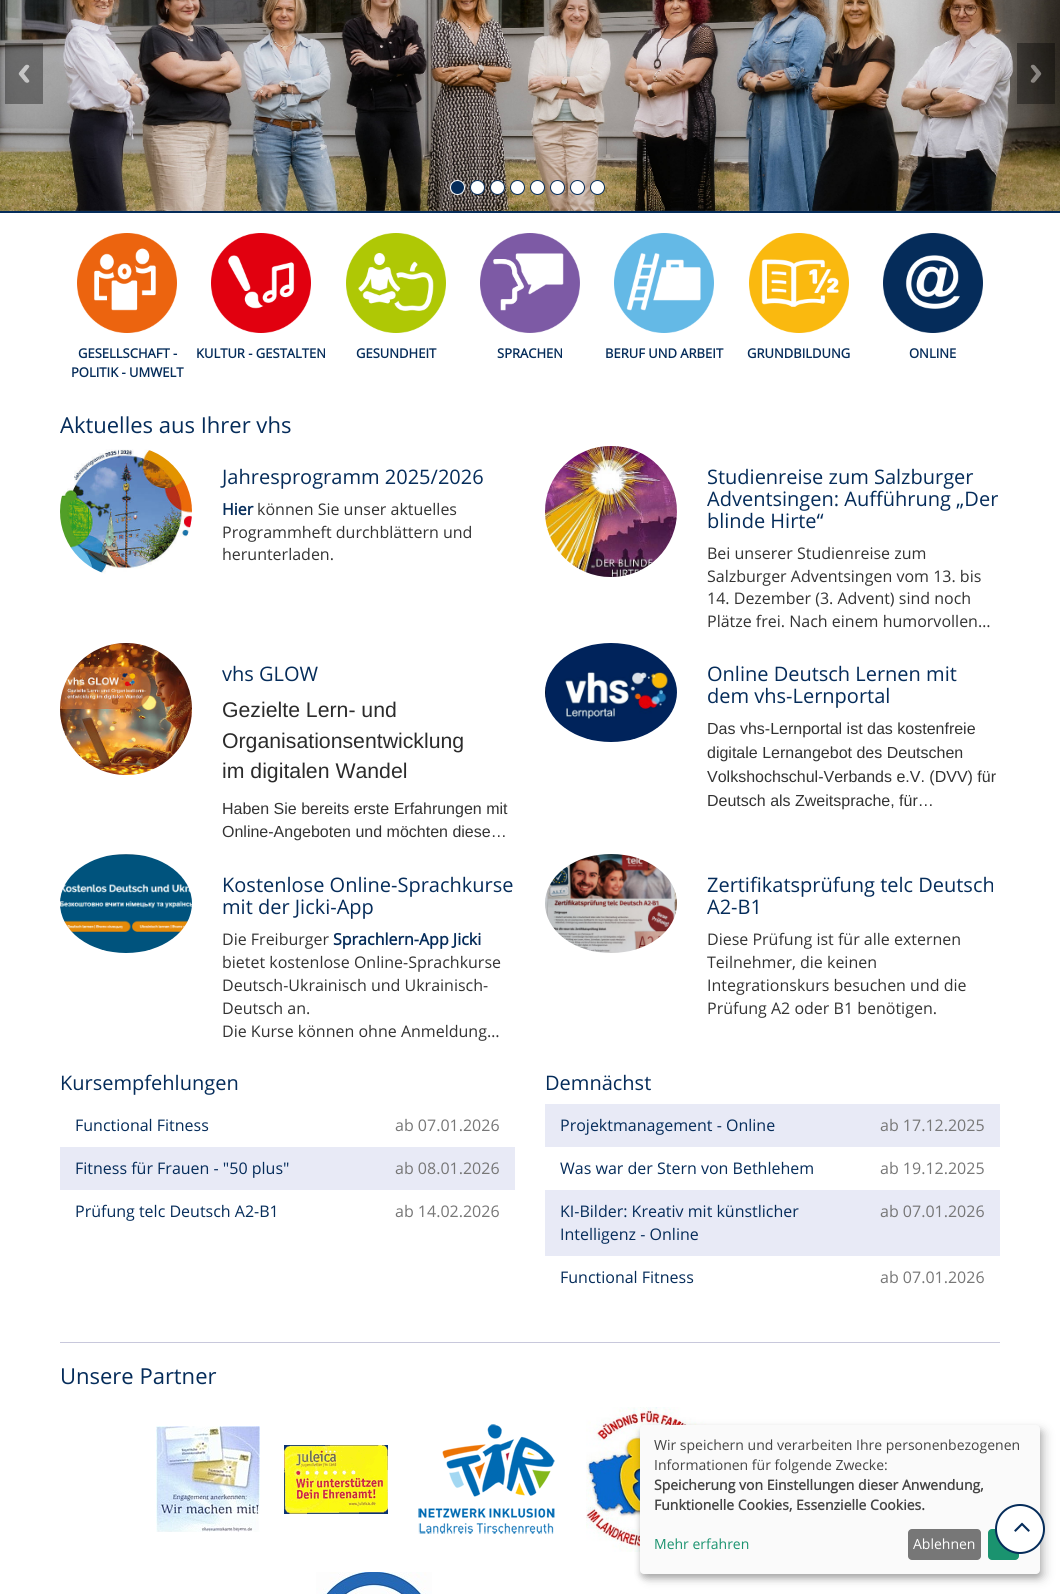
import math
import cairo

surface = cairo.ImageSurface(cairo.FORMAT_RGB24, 1060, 1594)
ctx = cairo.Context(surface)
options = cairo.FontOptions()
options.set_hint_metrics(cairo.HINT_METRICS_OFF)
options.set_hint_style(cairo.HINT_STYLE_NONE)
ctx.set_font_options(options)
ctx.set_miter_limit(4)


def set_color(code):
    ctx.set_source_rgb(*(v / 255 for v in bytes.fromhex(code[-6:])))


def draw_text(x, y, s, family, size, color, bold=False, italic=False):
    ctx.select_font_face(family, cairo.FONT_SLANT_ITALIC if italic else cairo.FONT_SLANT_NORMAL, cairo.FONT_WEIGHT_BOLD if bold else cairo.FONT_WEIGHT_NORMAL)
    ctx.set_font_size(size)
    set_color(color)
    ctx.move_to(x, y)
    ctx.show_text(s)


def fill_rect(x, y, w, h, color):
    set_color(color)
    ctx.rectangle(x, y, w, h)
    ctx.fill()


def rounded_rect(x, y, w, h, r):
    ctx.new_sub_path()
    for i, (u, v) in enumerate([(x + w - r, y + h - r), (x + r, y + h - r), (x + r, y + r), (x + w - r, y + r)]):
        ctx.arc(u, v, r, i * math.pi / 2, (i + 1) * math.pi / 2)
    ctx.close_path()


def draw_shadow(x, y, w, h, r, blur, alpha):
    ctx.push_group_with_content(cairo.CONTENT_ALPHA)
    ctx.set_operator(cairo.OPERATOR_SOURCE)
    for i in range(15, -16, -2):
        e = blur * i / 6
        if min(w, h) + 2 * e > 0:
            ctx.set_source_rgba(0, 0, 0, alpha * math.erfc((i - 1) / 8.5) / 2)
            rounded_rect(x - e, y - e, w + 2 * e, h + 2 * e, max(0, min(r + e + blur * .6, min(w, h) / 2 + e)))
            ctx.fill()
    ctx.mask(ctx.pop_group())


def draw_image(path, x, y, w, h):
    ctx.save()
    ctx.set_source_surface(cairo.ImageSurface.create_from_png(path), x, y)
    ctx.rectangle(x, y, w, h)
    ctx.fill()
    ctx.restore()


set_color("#ffffff")
ctx.paint()
fill_rect(0, 211, 1060, 2, "#052c5a")
draw_image("assets/img1.png", 0, 0, 1060, 211)
draw_image("assets/img2.png", 5, 43, 38, 61)
draw_image("assets/img3.png", 1017, 43, 38, 61)
ctx.arc(457.5, 187.5, 7, 0, 2 * math.pi)
ctx.fill_preserve()
set_color("#ffffff")
ctx.set_line_width(1)
ctx.stroke()
ctx.arc(477.5, 187.5, 7, 0, 2 * math.pi)
ctx.fill_preserve()
set_color("#052c5a")
ctx.stroke()
set_color("#ffffff")
ctx.arc(497.5, 187.5, 7, 0, 2 * math.pi)
ctx.fill_preserve()
set_color("#052c5a")
ctx.stroke()
set_color("#ffffff")
ctx.arc(517.5, 187.5, 7, 0, 2 * math.pi)
ctx.fill_preserve()
set_color("#052c5a")
ctx.stroke()
set_color("#ffffff")
ctx.arc(537.5, 187.5, 7, 0, 2 * math.pi)
ctx.fill_preserve()
set_color("#052c5a")
ctx.stroke()
set_color("#ffffff")
ctx.arc(557.5, 187.5, 7, 0, 2 * math.pi)
ctx.fill_preserve()
set_color("#052c5a")
ctx.stroke()
set_color("#ffffff")
ctx.arc(577.5, 187.5, 7, 0, 2 * math.pi)
ctx.fill_preserve()
set_color("#052c5a")
ctx.stroke()
set_color("#ffffff")
ctx.arc(597.5, 187.5, 7, 0, 2 * math.pi)
ctx.fill_preserve()
set_color("#052c5a")
ctx.stroke()
draw_image("assets/img4.png", 77, 233, 100, 100)
draw_text(78, 358, "GESELLSCHAFT -", "Open Sans", 13, "#052c5a", bold=True)
draw_text(71, 377, "POLITIK - UMWELT", "Open Sans", 13, "#052c5a", bold=True)
draw_image("assets/img5.png", 211, 233, 100, 100)
draw_text(196, 358, "KULTUR - GESTALTEN", "Open Sans", 13, "#052c5a", bold=True)
draw_image("assets/img6.png", 346, 233, 100, 100)
draw_text(356, 358, "GESUNDHEIT", "Open Sans", 13, "#052c5a", bold=True)
draw_image("assets/img7.png", 480, 233, 100, 100)
draw_text(497, 358, "SPRACHEN", "Open Sans", 13, "#052c5a", bold=True)
draw_image("assets/img8.png", 614, 233, 100, 100)
draw_text(605, 358, "BERUF UND ARBEIT", "Open Sans", 13, "#052c5a", bold=True)
draw_image("assets/img9.png", 749, 233, 100, 100)
draw_text(747, 358, "GRUNDBILDUNG", "Open Sans", 13, "#052c5a", bold=True)
draw_image("assets/img10.png", 883, 233, 100, 100)
draw_text(909, 358, "ONLINE", "Open Sans", 13, "#052c5a", bold=True)
draw_text(60, 433, "Aktuelles aus Ihrer vhs", "Open Sans", 22, "#052c5a")
draw_image("assets/img11.png", 60, 449, 132, 125)
draw_text(222, 484, "Jahresprogramm 2025/2026", "Open Sans", 20, "#052c5a")
draw_text(222, 515, "Hier", "Open Sans", 16, "#052c5a", bold=True)
draw_text(257, 515, "können Sie unser aktuelles", "Open Sans", 16, "#333333")
draw_text(222, 538, "Programmheft durchblättern und", "Open Sans", 16, "#333333")
draw_text(222, 560, "herunterladen.", "Open Sans", 16, "#333333")
draw_image("assets/img12.png", 545, 446, 132, 131)
draw_text(707, 484, "Studienreise zum Salzburger", "Open Sans", 20, "#052c5a")
draw_text(707, 506, "Adventsingen: Aufführung „Der", "Open Sans", 20, "#052c5a")
draw_text(707, 528, "blinde Hirte“", "Open Sans", 20, "#052c5a")
draw_text(707, 559, "Bei unserer Studienreise zum", "Open Sans", 16, "#333333")
draw_text(707, 582, "Salzburger Adventsingen vom 13. bis", "Open Sans", 16, "#333333")
draw_text(707, 604, "14. Dezember (3. Advent) sind noch", "Open Sans", 16, "#333333")
draw_text(707, 627, "Plätze frei. Nach einem humorvollen…", "Open Sans", 16, "#333333")
draw_image("assets/img13.png", 60, 643, 132, 132)
draw_text(222, 681, "vhs GLOW", "Open Sans", 20, "#052c5a")
draw_text(222, 717, "Gezielte Lern- und", "Liberation Sans", 21.25, "#2b2b2b")
draw_text(222, 748, "Organisationsentwicklung", "Liberation Sans", 21.25, "#2b2b2b")
draw_text(222, 778, "im digitalen Wandel", "Liberation Sans", 21.25, "#2b2b2b")
draw_text(222, 814, "Haben Sie bereits erste Erfahrungen mit", "Liberation Sans", 16, "#333333")
draw_text(222, 837, "Online-Angeboten und möchten diese…", "Liberation Sans", 16, "#333333")
draw_image("assets/img14.png", 545, 643, 132, 99)
draw_text(707, 681, "Online Deutsch Lernen mit", "Open Sans", 20, "#052c5a")
draw_text(707, 703, "dem vhs-Lernportal", "Open Sans", 20, "#052c5a")
draw_text(707, 734, "Das vhs-Lernportal ist das kostenfreie", "Liberation Sans", 16, "#333333")
draw_text(707, 758, "digitale Lernangebot des Deutschen", "Liberation Sans", 16, "#333333")
draw_text(707, 782, "Volkshochschul-Verbands e.V. (DVV) für", "Liberation Sans", 16, "#333333")
draw_text(707, 806, "Deutsch als Zweitsprache, für…", "Liberation Sans", 16, "#333333")
draw_image("assets/img15.png", 60, 854, 132, 99)
draw_text(222, 892, "Kostenlose Online-Sprachkurse", "Open Sans", 20, "#052c5a")
draw_text(222, 914, "mit der Jicki-App", "Open Sans", 20, "#052c5a")
draw_text(222, 945, "Die Freiburger", "Open Sans", 16, "#333333")
draw_text(333, 945, "Sprachlern-App Jicki", "Open Sans", 16, "#052c5a", bold=True)
draw_text(222, 968, "bietet kostenlose Online-Sprachkurse", "Open Sans", 16, "#333333")
draw_text(222, 991, "Deutsch-Ukrainisch und Ukrainisch-", "Open Sans", 16, "#333333")
draw_text(222, 1014, "Deutsch an.", "Open Sans", 16, "#333333")
draw_text(222, 1037, "Die Kurse können ohne Anmeldung…", "Open Sans", 16, "#333333")
draw_image("assets/img16.png", 545, 854, 132, 99)
draw_text(707, 892, "Zertifikatsprüfung telc Deutsch", "Open Sans", 20, "#052c5a")
draw_text(707, 914, "A2-B1", "Open Sans", 20, "#052c5a")
draw_text(707, 945, "Diese Prüfung ist für alle externen", "Open Sans", 16, "#333333")
draw_text(707, 968, "Teilnehmer, die keinen", "Open Sans", 16, "#333333")
draw_text(707, 991, "Integrationskurs besuchen und die", "Open Sans", 16, "#333333")
draw_text(707, 1014, "Prüfung A2 oder B1 benötigen.", "Open Sans", 16, "#333333")
draw_text(60, 1090, "Kursempfehlungen", "Open Sans", 20, "#052c5a")
draw_text(75, 1131, "Functional Fitness", "Open Sans", 16, "#052c5a")
draw_text(395, 1131, "ab 07.01.2026", "Open Sans", 16, "#777777")
fill_rect(60, 1147, 455, 43, "#e8eaf6")
draw_text(75, 1174, "Fitness für Frauen - \"50 plus\"", "Open Sans", 16, "#052c5a")
draw_text(395, 1174, "ab 08.01.2026", "Open Sans", 16, "#777777")
draw_text(75, 1217, "Prüfung telc Deutsch A2-B1", "Open Sans", 16, "#052c5a")
draw_text(395, 1217, "ab 14.02.2026", "Open Sans", 16, "#777777")
draw_text(545, 1090, "Demnächst", "Open Sans", 20, "#052c5a")
fill_rect(545, 1104, 455, 43, "#e8eaf6")
draw_text(560, 1131, "Projektmanagement - Online", "Open Sans", 16, "#052c5a")
draw_text(880, 1131, "ab 17.12.2025", "Open Sans", 16, "#777777")
draw_text(560, 1174, "Was war der Stern von Bethlehem", "Open Sans", 16, "#052c5a")
draw_text(880, 1174, "ab 19.12.2025", "Open Sans", 16, "#777777")
fill_rect(545, 1190, 455, 66, "#e8eaf6")
draw_text(560, 1217, "KI-Bilder: Kreativ mit künstlicher", "Open Sans", 16, "#052c5a")
draw_text(560, 1240, "Intelligenz - Online", "Open Sans", 16, "#052c5a")
draw_text(880, 1217, "ab 07.01.2026", "Open Sans", 16, "#777777")
draw_text(560, 1283, "Functional Fitness", "Open Sans", 16, "#052c5a")
draw_text(880, 1283, "ab 07.01.2026", "Open Sans", 16, "#777777")
fill_rect(60, 1342, 940, 1, "#c8c8dc")
draw_text(60, 1384, "Unsere Partner", "Open Sans", 22, "#052c5a")
draw_image("assets/img17.png", 156, 1426, 104, 106)
draw_image("assets/img18.png", 284, 1445, 104, 69)
draw_image("assets/img19.png", 418, 1424, 137, 110)
draw_image("assets/img20.png", 586, 1407, 125, 145)
draw_image("assets/img21.png", 316, 1572, 116, 22)
set_color("#000000")
draw_shadow(645, 1430, 400, 149, 4, 5, 0.19)
draw_shadow(640, 1429, 400, 149, 4, 3, 0.2)
set_color("#fafafa")
rounded_rect(640, 1425, 400, 149, 4)
ctx.fill()
draw_text(654, 1450, "Wir speichern und verarbeiten Ihre personenbezogenen", "Open Sans", 14, "#444444")
draw_text(654, 1470, "Informationen für folgende Zwecke:", "Open Sans", 14, "#444444")
draw_text(654, 1490, "Speicherung von Einstellungen dieser Anwendung,", "Open Sans", 14, "#444444", bold=True)
draw_text(654, 1510, "Funktionelle Cookies, Essenzielle Cookies.", "Open Sans", 14, "#444444", bold=True)
draw_text(654, 1549, "Mehr erfahren", "Open Sans", 14, "#1a936f")
set_color("#777777")
rounded_rect(908, 1529, 73, 31, 4)
ctx.fill()
draw_text(913, 1549, "Ablehnen", "Open Sans", 14, "#ffffff")
set_color("#1a936f")
rounded_rect(988, 1529, 31, 31, 4)
ctx.fill()
set_color("#ffffff")
ctx.arc(1020, 1529, 24, 0, 2 * math.pi)
ctx.fill_preserve()
set_color("#052c5a")
ctx.set_line_width(2)
ctx.stroke()
draw_image("assets/img22.png", 1014, 1522, 16, 10)
surface.write_to_png("output.png")
